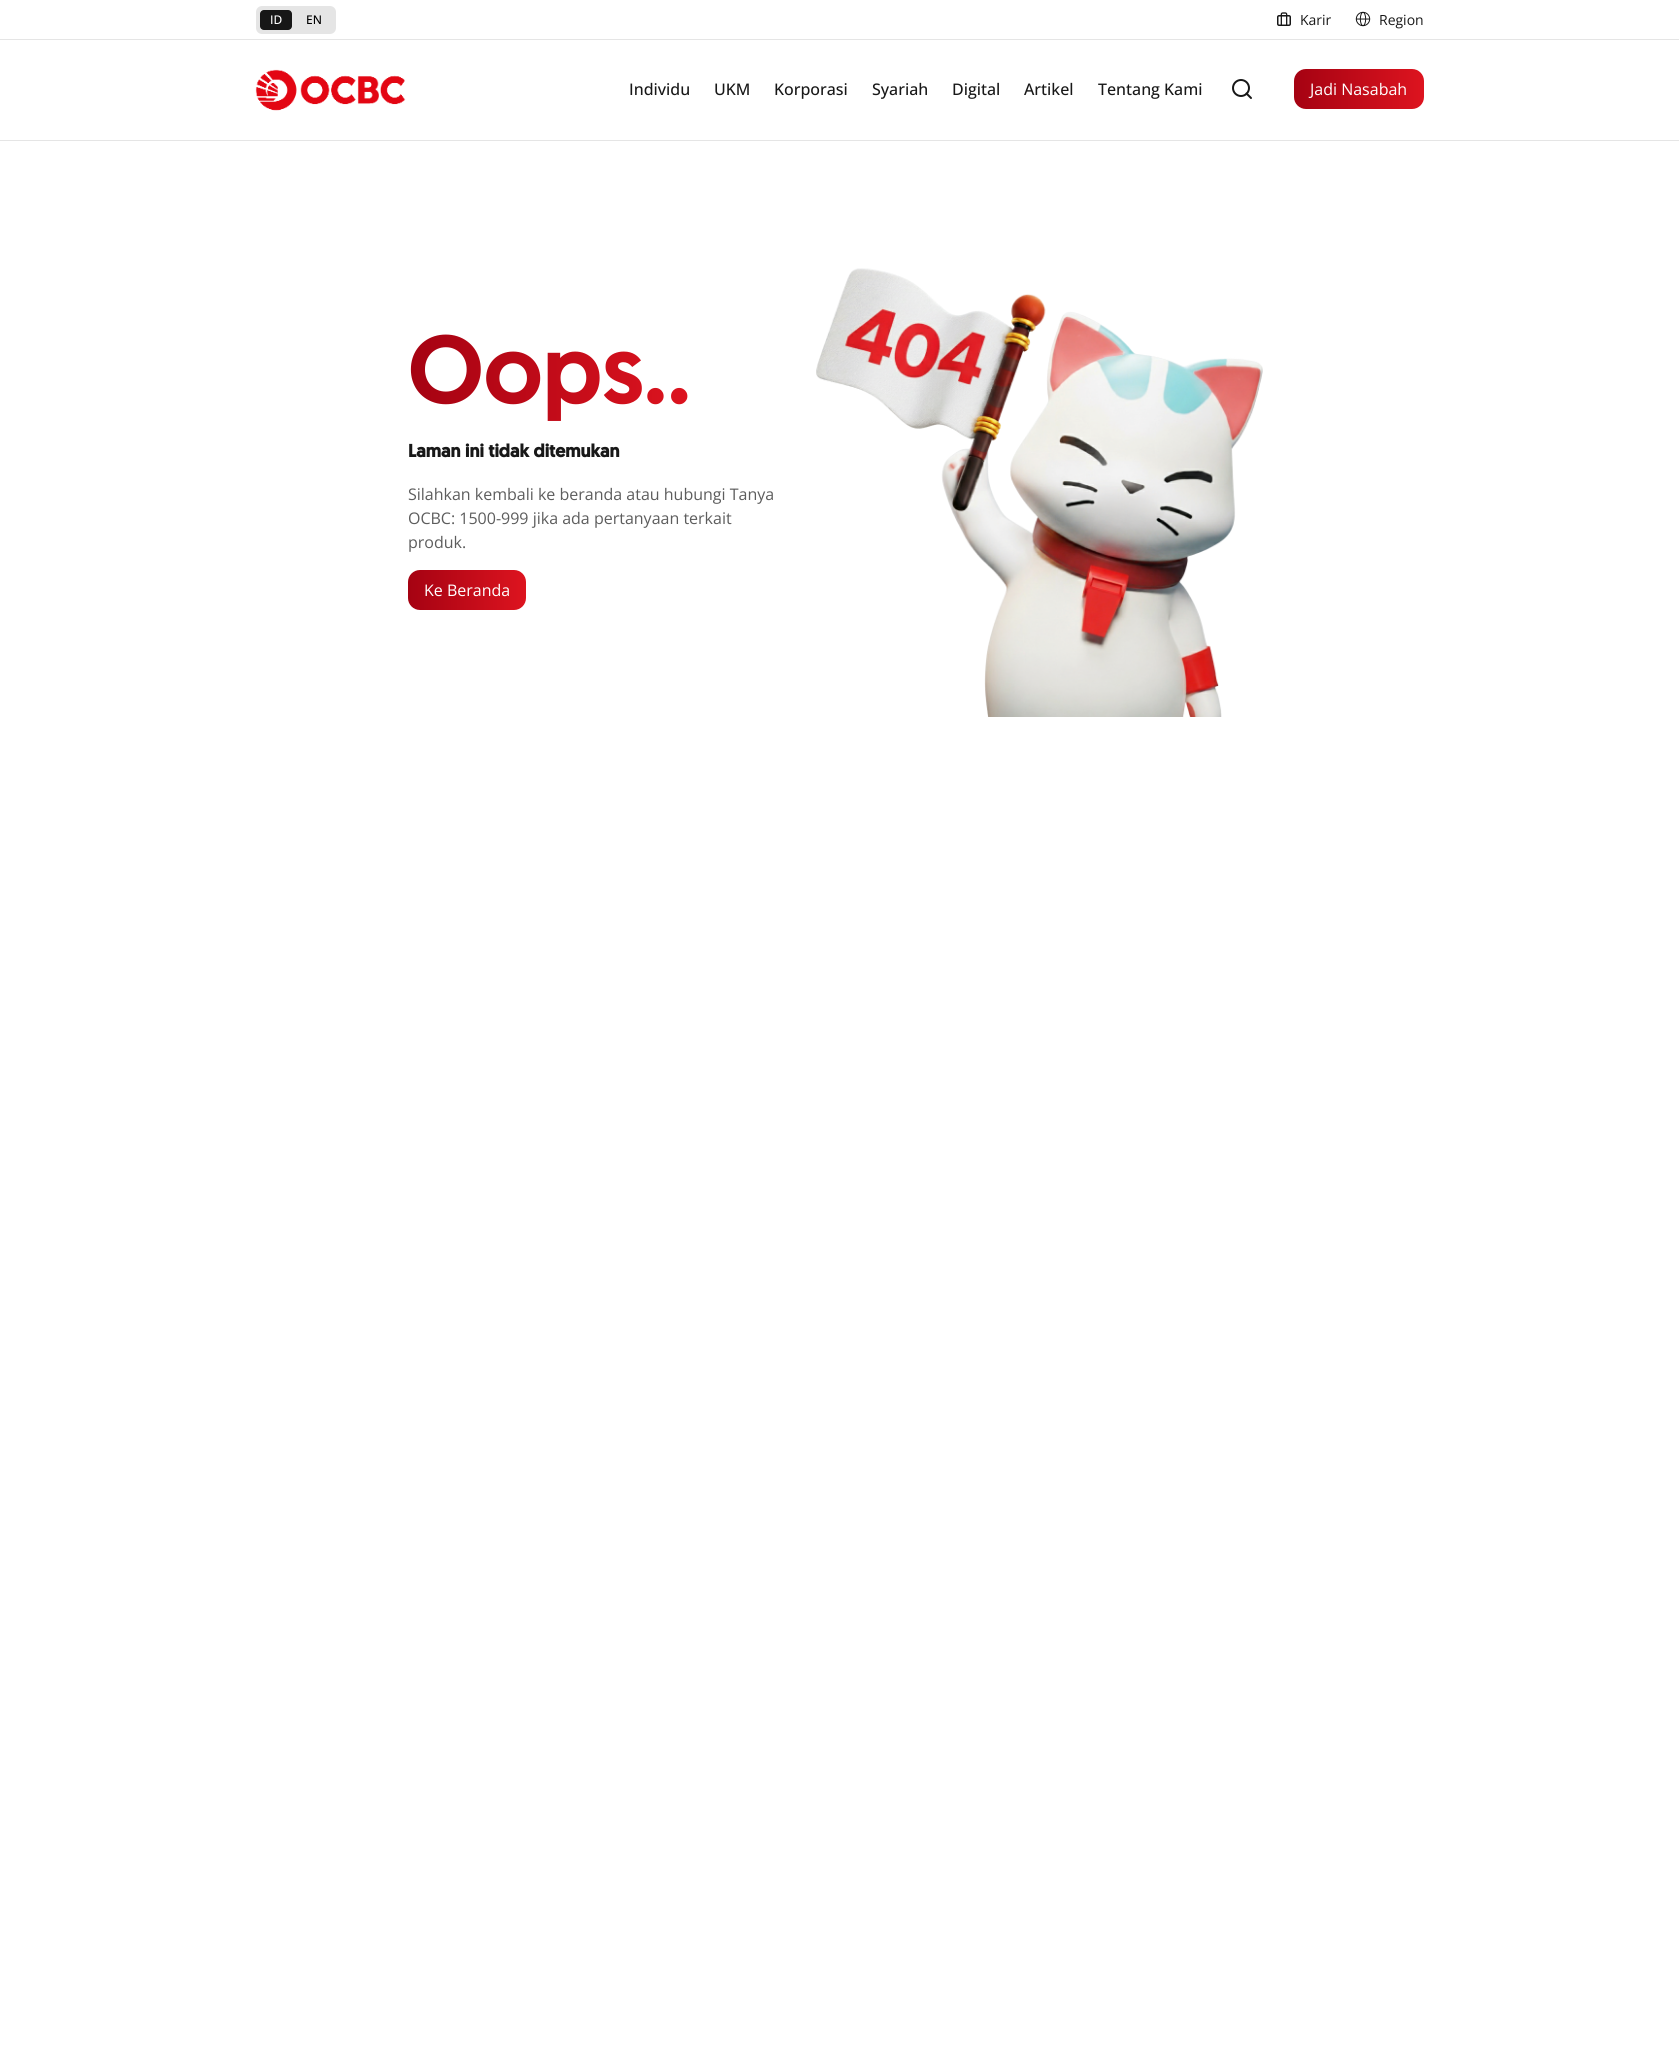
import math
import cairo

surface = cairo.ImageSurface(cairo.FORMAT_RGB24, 1679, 2063)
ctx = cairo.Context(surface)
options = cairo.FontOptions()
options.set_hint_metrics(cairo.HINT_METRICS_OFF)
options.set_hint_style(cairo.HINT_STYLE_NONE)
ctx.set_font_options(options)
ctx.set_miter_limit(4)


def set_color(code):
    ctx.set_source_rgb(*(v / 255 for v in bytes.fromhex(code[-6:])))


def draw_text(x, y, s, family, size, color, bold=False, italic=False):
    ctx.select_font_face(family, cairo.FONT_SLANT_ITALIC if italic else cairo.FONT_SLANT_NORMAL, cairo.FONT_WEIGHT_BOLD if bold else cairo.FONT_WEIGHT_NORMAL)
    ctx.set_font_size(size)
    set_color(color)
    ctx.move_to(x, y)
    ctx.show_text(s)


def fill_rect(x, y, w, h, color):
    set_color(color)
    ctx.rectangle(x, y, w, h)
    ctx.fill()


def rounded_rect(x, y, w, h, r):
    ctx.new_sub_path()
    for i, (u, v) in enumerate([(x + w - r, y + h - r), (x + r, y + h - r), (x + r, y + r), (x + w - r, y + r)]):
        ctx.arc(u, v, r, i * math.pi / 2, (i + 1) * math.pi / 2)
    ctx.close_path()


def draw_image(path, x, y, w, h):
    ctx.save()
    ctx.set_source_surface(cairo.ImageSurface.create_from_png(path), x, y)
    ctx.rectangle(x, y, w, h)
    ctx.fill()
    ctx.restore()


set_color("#ffffff")
ctx.paint()
fill_rect(0, 140, 1679, 1, "#e5e5e5")
fill_rect(0, 39, 1679, 1, "#e5e5e5")
rounded_rect(256, 6, 80, 28, 6)
ctx.fill()
set_color("#171717")
rounded_rect(260, 10, 32, 20, 4)
ctx.fill()
draw_text(270, 24, "ID", "Open Sans Medium", 12, "#ffffff")
draw_text(306, 24, "EN", "Open Sans Medium", 12, "#000000")
draw_image("assets/img1.png", 1277, 12, 14, 14)
draw_text(1300, 25, "Karir", "Open Sans", 14, "#181818")
draw_image("assets/img2.png", 1355, 11, 16, 16)
draw_text(1379, 25, "Region", "Open Sans", 14, "#181818")
draw_image("assets/img3.png", 255, 69, 151, 42)
draw_text(629, 95, "Individu", "Open Sans Medium", 16, "#181818")
draw_text(714, 95, "UKM", "Open Sans Medium", 16, "#181818")
draw_text(774, 95, "Korporasi", "Open Sans Medium", 16, "#181818")
draw_text(872, 95, "Syariah", "Open Sans Medium", 16, "#181818")
draw_text(952, 95, "Digital", "Open Sans Medium", 16, "#181818")
draw_text(1024, 95, "Artikel", "Open Sans Medium", 16, "#181818")
draw_text(1098, 95, "Tentang Kami", "Open Sans Medium", 16, "#181818")
ctx.new_path()
ctx.arc(1241, 88, 8, 0, 2 * math.pi)
set_color("#171717")
ctx.stroke()
ctx.new_path()
ctx.move_to(1251, 98)
ctx.line_to(1246.5, 93.5)
ctx.set_line_cap(cairo.LINE_CAP_ROUND)
ctx.set_line_join(cairo.LINE_JOIN_ROUND)
ctx.stroke()
gradient = cairo.LinearGradient(1294, 89, 1424, 89)
gradient.add_color_stop_rgba(0, 0.647, 0.008, 0.071, 1)
gradient.add_color_stop_rgba(1, 0.867, 0.078, 0.122, 1)
ctx.set_source(gradient)
rounded_rect(1294, 69, 130, 40, 12)
ctx.fill()
draw_text(1310, 95, "Jadi Nasabah", "Open Sans", 16, "#ffffff")
ctx.select_font_face("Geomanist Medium")
ctx.set_font_size(96)
gradient = cairo.LinearGradient(408, 374, 690, 374)
gradient.add_color_stop_rgba(0, 0.647, 0.008, 0.071, 1)
gradient.add_color_stop_rgba(1, 0.867, 0.078, 0.122, 1)
ctx.set_source(gradient)
ctx.move_to(408, 403)
ctx.show_text("Oops..")
draw_text(408, 457, "Laman ini tidak ditemukan", "Geomanist", 18, "#181818", bold=True)
draw_text(408, 500, "Silahkan kembali ke beranda atau hubungi Tanya", "Open Sans", 16, "#5d5d5d")
draw_text(408, 524, "OCBC: 1500-999 jika ada pertanyaan terkait", "Open Sans", 16, "#5d5d5d")
draw_text(408, 548, "produk.", "Open Sans", 16, "#5d5d5d")
gradient = cairo.LinearGradient(408, 590, 526, 590)
gradient.add_color_stop_rgba(0, 0.647, 0.008, 0.071, 1)
gradient.add_color_stop_rgba(1, 0.867, 0.078, 0.122, 1)
ctx.set_source(gradient)
rounded_rect(408, 570, 118, 40, 12)
ctx.fill()
draw_text(424, 596, "Ke Beranda", "Open Sans", 16, "#ffffff")
draw_image("assets/img4.png", 816, 268, 447, 449)
surface.write_to_png("output.png")
